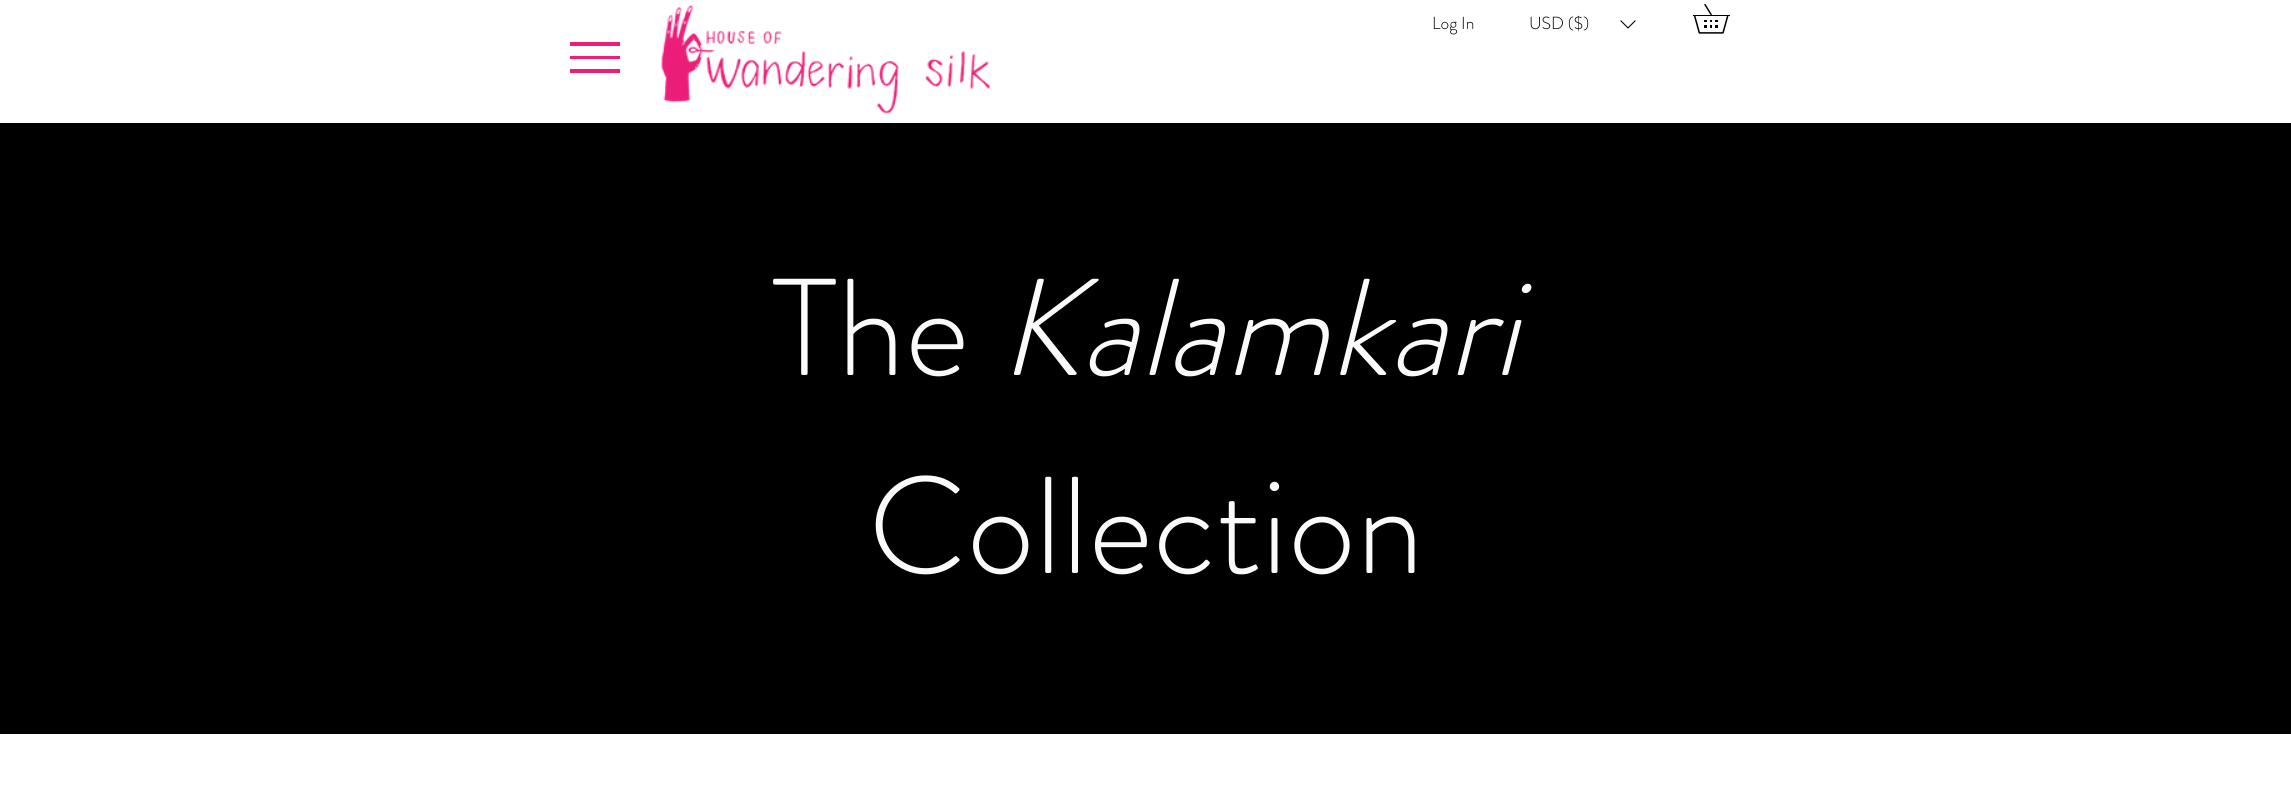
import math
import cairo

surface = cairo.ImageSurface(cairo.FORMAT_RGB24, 2291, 788)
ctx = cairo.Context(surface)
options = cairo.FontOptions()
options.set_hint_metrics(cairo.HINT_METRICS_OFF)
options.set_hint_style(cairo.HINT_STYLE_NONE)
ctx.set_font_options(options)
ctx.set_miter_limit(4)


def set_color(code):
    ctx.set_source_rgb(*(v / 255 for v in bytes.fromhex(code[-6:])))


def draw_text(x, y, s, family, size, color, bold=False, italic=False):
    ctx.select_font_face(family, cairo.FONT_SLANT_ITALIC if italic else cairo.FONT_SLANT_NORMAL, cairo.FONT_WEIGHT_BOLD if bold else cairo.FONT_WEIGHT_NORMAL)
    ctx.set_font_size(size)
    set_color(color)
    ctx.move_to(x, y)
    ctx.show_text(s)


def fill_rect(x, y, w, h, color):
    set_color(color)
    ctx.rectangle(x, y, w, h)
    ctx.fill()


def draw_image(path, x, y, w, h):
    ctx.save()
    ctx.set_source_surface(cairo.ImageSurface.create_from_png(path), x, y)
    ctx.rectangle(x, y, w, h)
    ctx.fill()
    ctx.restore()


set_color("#ffffff")
ctx.paint()
draw_image("assets/img1.png", 661, 5, 330, 109)
draw_text(1432, 29, "Log In", "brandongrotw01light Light", 17.5, "#000000")
draw_text(1529, 29, "USD ($)", "brandongrotw01light Light", 17.5, "#000000")
draw_image("assets/img2.png", 1620, 20, 16, 9)
draw_image("assets/img3.png", 1693, 3, 37, 31)
fill_rect(570, 69, 50, 4, "#ed1e79")
fill_rect(570, 42, 50, 4, "#ed1e79")
fill_rect(570, 56, 50, 3, "#ed1e79")
fill_rect(0, 123, 2291, 611, "#000000")
draw_text(772, 375, "The", "brandongrotw01light Light", 137.5, "#fafafa")
draw_text(999, 375, "Kalamkari", "brandongrotw01light Light", 137.5, "#fafafa", italic=True)
draw_text(868, 573, "Collection", "brandongrotw01light Light", 137.5, "#fafafa")
surface.write_to_png("output.png")
